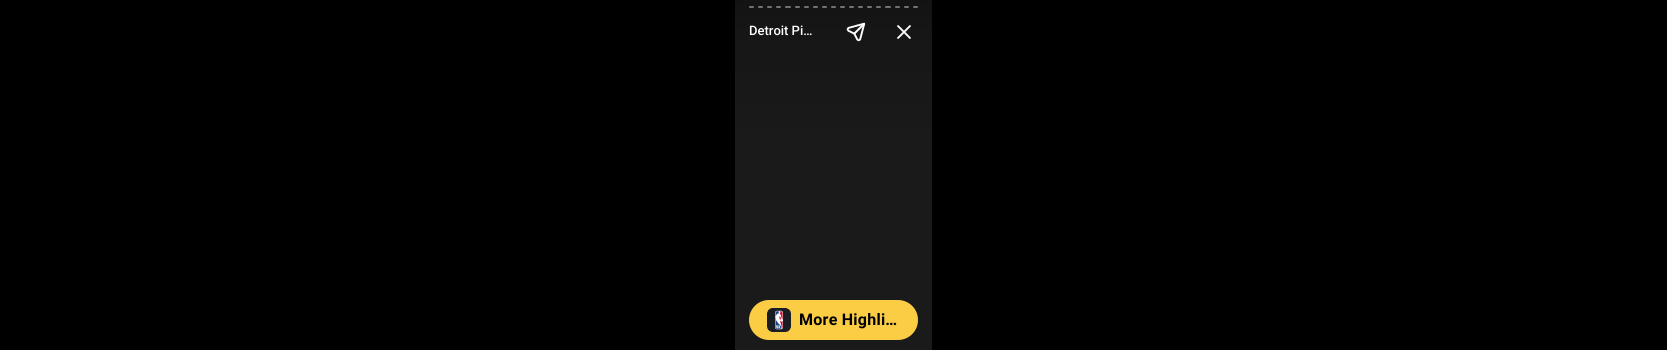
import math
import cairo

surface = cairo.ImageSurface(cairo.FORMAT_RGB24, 1667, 350)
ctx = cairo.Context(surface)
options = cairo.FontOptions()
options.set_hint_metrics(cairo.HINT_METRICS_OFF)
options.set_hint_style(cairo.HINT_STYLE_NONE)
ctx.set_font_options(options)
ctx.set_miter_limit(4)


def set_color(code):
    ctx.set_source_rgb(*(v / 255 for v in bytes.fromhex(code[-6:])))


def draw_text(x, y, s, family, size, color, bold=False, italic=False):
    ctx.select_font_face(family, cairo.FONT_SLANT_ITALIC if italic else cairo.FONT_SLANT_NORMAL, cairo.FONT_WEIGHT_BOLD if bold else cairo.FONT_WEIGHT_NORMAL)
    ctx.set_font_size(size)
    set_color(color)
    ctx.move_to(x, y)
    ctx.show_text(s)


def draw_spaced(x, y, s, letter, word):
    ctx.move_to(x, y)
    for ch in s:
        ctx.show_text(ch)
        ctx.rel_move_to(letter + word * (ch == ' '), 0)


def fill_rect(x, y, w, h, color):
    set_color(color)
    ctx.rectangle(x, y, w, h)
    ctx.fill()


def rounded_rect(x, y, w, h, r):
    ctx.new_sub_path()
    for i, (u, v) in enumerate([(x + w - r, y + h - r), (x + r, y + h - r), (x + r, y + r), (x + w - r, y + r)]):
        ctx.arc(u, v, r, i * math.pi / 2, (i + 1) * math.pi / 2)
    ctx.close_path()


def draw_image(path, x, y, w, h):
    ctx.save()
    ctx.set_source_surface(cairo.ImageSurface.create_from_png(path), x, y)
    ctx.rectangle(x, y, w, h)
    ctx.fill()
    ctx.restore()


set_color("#000000")
ctx.paint()
gradient = cairo.LinearGradient(834, 0, 834, 140)
gradient.add_color_stop_rgba(0, 0.075, 0.075, 0.075, 1)
gradient.add_color_stop_rgba(0.33, 0.09, 0.09, 0.09, 1)
gradient.add_color_stop_rgba(0.67, 0.094, 0.094, 0.094, 1)
gradient.add_color_stop_rgba(1, 0.102, 0.102, 0.102, 1)
ctx.set_source(gradient)
ctx.rectangle(735, 0, 197, 140)
ctx.fill()
set_color("#727272")
rounded_rect(749, 6, 5, 2, 1)
ctx.fill()
rounded_rect(758, 6, 5, 2, 1)
ctx.fill()
rounded_rect(767, 6, 5, 2, 1)
ctx.fill()
rounded_rect(776, 6, 5, 2, 1)
ctx.fill()
rounded_rect(785, 6, 6, 2, 1)
ctx.fill()
rounded_rect(795, 6, 5, 2, 1)
ctx.fill()
rounded_rect(804, 6, 5, 2, 1)
ctx.fill()
rounded_rect(813, 6, 5, 2, 1)
ctx.fill()
rounded_rect(822, 6, 5, 2, 1)
ctx.fill()
rounded_rect(831, 6, 5, 2, 1)
ctx.fill()
rounded_rect(840, 6, 5, 2, 1)
ctx.fill()
rounded_rect(849, 6, 5, 2, 1)
ctx.fill()
rounded_rect(858, 6, 5, 2, 1)
ctx.fill()
rounded_rect(867, 6, 5, 2, 1)
ctx.fill()
rounded_rect(876, 6, 5, 2, 1)
ctx.fill()
rounded_rect(885, 6, 6, 2, 1)
ctx.fill()
rounded_rect(895, 6, 5, 2, 1)
ctx.fill()
rounded_rect(904, 6, 5, 2, 1)
ctx.fill()
rounded_rect(913, 6, 5, 2, 1)
ctx.fill()
draw_text(749, 35, "Detroit Pi…", "Roboto Medium", 13, "#ffffff")
draw_image("assets/img1.png", 846, 22, 20, 20)
draw_image("assets/img2.png", 897, 25, 14, 14)
fill_rect(735, 140, 197, 210, "#1a1a1a")
set_color("#fbcd44")
rounded_rect(749, 300, 169, 40, 20)
ctx.fill()
draw_image("assets/img3.png", 767, 308, 24, 24)
ctx.select_font_face("Roboto", cairo.FONT_SLANT_NORMAL, cairo.FONT_WEIGHT_BOLD)
ctx.set_font_size(16)
set_color("#000000")
draw_spaced(799, 325, "More Highli…", 0.25, 0)
surface.write_to_png("output.png")
